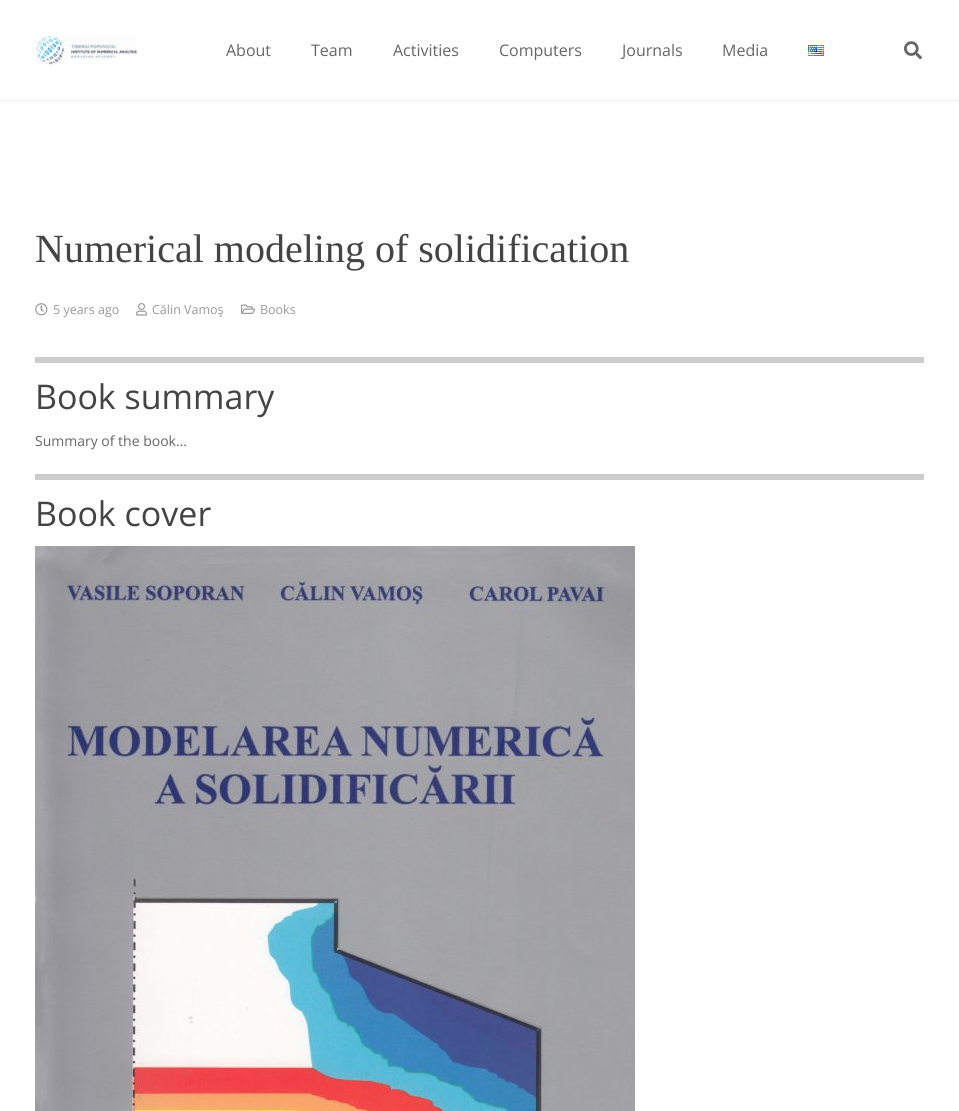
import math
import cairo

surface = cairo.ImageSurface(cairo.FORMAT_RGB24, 959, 1111)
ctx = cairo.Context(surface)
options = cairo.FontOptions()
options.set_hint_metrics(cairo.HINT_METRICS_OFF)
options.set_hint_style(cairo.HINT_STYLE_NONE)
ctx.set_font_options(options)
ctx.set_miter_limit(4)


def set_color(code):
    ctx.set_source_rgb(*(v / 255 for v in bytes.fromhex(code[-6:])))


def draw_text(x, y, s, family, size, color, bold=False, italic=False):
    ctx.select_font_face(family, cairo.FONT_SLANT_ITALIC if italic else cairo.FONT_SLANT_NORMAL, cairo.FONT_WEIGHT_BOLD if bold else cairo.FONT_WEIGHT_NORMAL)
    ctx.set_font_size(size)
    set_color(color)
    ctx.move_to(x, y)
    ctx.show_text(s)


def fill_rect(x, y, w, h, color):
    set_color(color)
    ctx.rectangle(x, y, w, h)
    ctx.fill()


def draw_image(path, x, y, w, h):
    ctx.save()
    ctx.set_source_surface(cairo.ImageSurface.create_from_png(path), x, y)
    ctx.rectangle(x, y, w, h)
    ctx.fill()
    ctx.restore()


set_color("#ffffff")
ctx.paint()
fill_rect(0, 100, 959, 1, "#ebebeb")
draw_image("assets/img1.png", 35, 35, 103, 30)
draw_text(226, 56, "About", "Open Sans", 16, "#666666")
draw_text(311, 56, "Team", "Open Sans", 16, "#666666")
draw_text(393, 56, "Activities", "Open Sans", 16, "#666666")
draw_text(499, 56, "Computers", "Open Sans", 16, "#666666")
draw_text(622, 56, "Journals", "Open Sans", 16, "#666666")
draw_text(722, 56, "Media", "Open Sans", 16, "#666666")
draw_image("assets/img2.png", 808, 45, 16, 11)
draw_image("assets/img3.png", 904, 41, 18, 19)
draw_text(35, 262, "Numerical modeling of solidification", "Liberation Serif", 40, "#444444")
draw_image("assets/img4.png", 35, 303, 13, 13)
draw_text(53, 314, "5 years ago", "Open Sans", 12.5, "#999999")
draw_image("assets/img5.png", 136, 303, 11, 13)
draw_text(152, 314, "Călin Vamoş", "Open Sans", 12.5, "#999999")
draw_image("assets/img6.png", 241, 304, 15, 10)
draw_text(260, 314, "Books", "Open Sans", 12.5, "#999999")
fill_rect(35, 357, 889, 6, "#cccccc")
draw_text(35, 409, "Book summary", "Open Sans", 34, "#444444")
draw_text(35, 446, "Summary of the book…", "Open Sans", 14, "#666666")
fill_rect(35, 474, 889, 6, "#cccccc")
draw_text(35, 526, "Book cover", "Open Sans", 34, "#444444")
draw_image("assets/img7.png", 35, 546, 600, 565)
surface.write_to_png("output.png")
